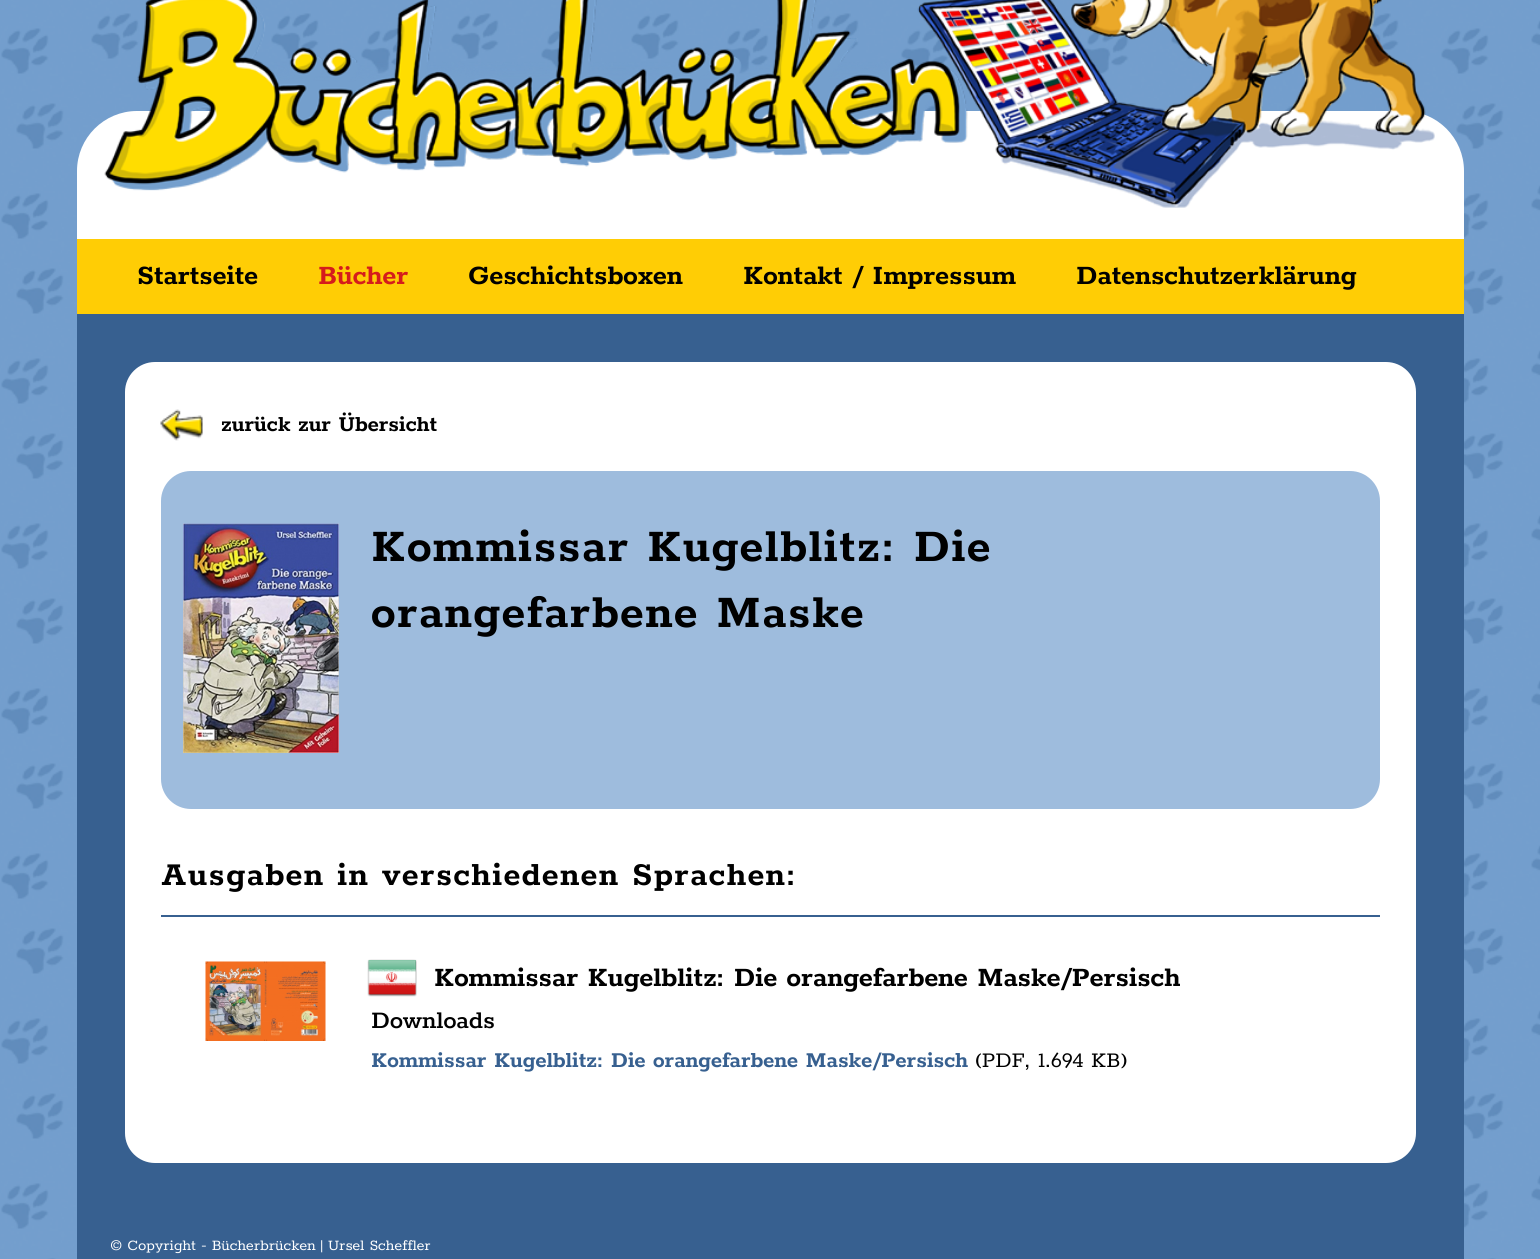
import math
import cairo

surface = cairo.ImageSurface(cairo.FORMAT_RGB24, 1540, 1259)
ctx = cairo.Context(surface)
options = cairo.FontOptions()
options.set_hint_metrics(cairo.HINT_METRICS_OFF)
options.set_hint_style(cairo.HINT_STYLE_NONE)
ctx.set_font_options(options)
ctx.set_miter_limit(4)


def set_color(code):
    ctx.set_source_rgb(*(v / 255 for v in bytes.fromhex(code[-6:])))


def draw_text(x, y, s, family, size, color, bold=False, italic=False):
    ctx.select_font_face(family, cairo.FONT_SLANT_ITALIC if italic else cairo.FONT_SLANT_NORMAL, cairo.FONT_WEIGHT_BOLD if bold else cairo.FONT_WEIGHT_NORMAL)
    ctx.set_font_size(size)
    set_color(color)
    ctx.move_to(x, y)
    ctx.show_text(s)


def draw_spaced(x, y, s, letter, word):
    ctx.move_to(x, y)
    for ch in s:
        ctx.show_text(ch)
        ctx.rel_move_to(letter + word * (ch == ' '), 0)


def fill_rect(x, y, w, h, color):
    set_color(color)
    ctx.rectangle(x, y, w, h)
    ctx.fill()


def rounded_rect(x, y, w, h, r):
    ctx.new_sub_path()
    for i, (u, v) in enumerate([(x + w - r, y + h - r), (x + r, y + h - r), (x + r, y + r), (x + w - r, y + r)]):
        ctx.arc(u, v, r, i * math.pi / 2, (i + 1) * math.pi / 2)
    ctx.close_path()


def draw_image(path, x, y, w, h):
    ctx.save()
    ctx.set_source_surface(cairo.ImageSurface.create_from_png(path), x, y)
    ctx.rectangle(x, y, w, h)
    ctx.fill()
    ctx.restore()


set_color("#ffffff")
ctx.paint()
draw_image("assets/img1.png", 0, 0, 1540, 1259)
set_color("#ffffff")
ctx.new_path()
ctx.move_to(137, 111)
ctx.line_to(1404, 111)
ctx.curve_to(1437, 111, 1464, 138, 1464, 171)
ctx.line_to(1464, 314)
ctx.line_to(77, 314)
ctx.line_to(77, 171)
ctx.curve_to(77, 138, 104, 111, 137, 111)
ctx.close_path()
ctx.fill()
draw_image("assets/img2.png", 104, 0, 1331, 208)
fill_rect(77, 239, 1387, 75, "#ffcd05")
draw_text(137, 284, "Startseite", "Rokkitt", 30, "#000000", bold=True)
draw_text(318, 284, "Bücher", "Rokkitt", 30, "#d51c1c", bold=True)
draw_text(468, 284, "Geschichtsboxen", "Rokkitt", 30, "#000000", bold=True)
draw_text(743, 284, "Kontakt / Impressum", "Rokkitt", 30, "#000000", bold=True)
draw_text(1076, 284, "Datenschutzerklärung", "Rokkitt", 30, "#000000", bold=True)
fill_rect(77, 314, 1387, 945, "#376090")
set_color("#ffffff")
rounded_rect(125, 362, 1291, 801, 30)
ctx.fill()
draw_image("assets/img3.png", 160, 409, 43, 32)
draw_text(221, 431, "zurück zur Übersicht", "Rokkitt", 24, "#000000", bold=True)
set_color("#9ebcdd")
rounded_rect(161, 471, 1219, 338, 30)
ctx.fill()
draw_image("assets/img4.png", 183, 523, 156, 230)
ctx.set_font_size(51)
set_color("#000000")
draw_spaced(371, 561, "Kommissar Kugelblitz: Die", 1.5, 0)
draw_spaced(371, 627, "orangefarbene Maske", 1.5, 0)
ctx.set_font_size(36)
draw_spaced(161, 885, "Ausgaben in verschiedenen Sprachen:", 1.5, 0)
fill_rect(161, 915, 1219, 2, "#376090")
draw_image("assets/img5.png", 205, 961, 121, 80)
draw_image("assets/img6.png", 367, 959, 50, 38)
draw_text(434, 986, "Kommissar Kugelblitz: Die orangefarbene Maske/Persisch", "Rokkitt", 30, "#000000", bold=True)
draw_text(371, 1028, "Downloads", "Rokkitt SemiBold", 27, "#000000")
draw_text(371, 1067, "Kommissar Kugelblitz: Die orangefarbene Maske/Persisch", "Rokkitt", 24, "#376090", bold=True)
draw_text(975, 1067, "(PDF, 1.694 KB)", "Rokkitt", 24, "#000000")
draw_text(110, 1250, "© Copyright - Bücherbrücken | Ursel Scheffler", "Rokkitt", 16.5, "#ffffff")
surface.write_to_png("output.png")
